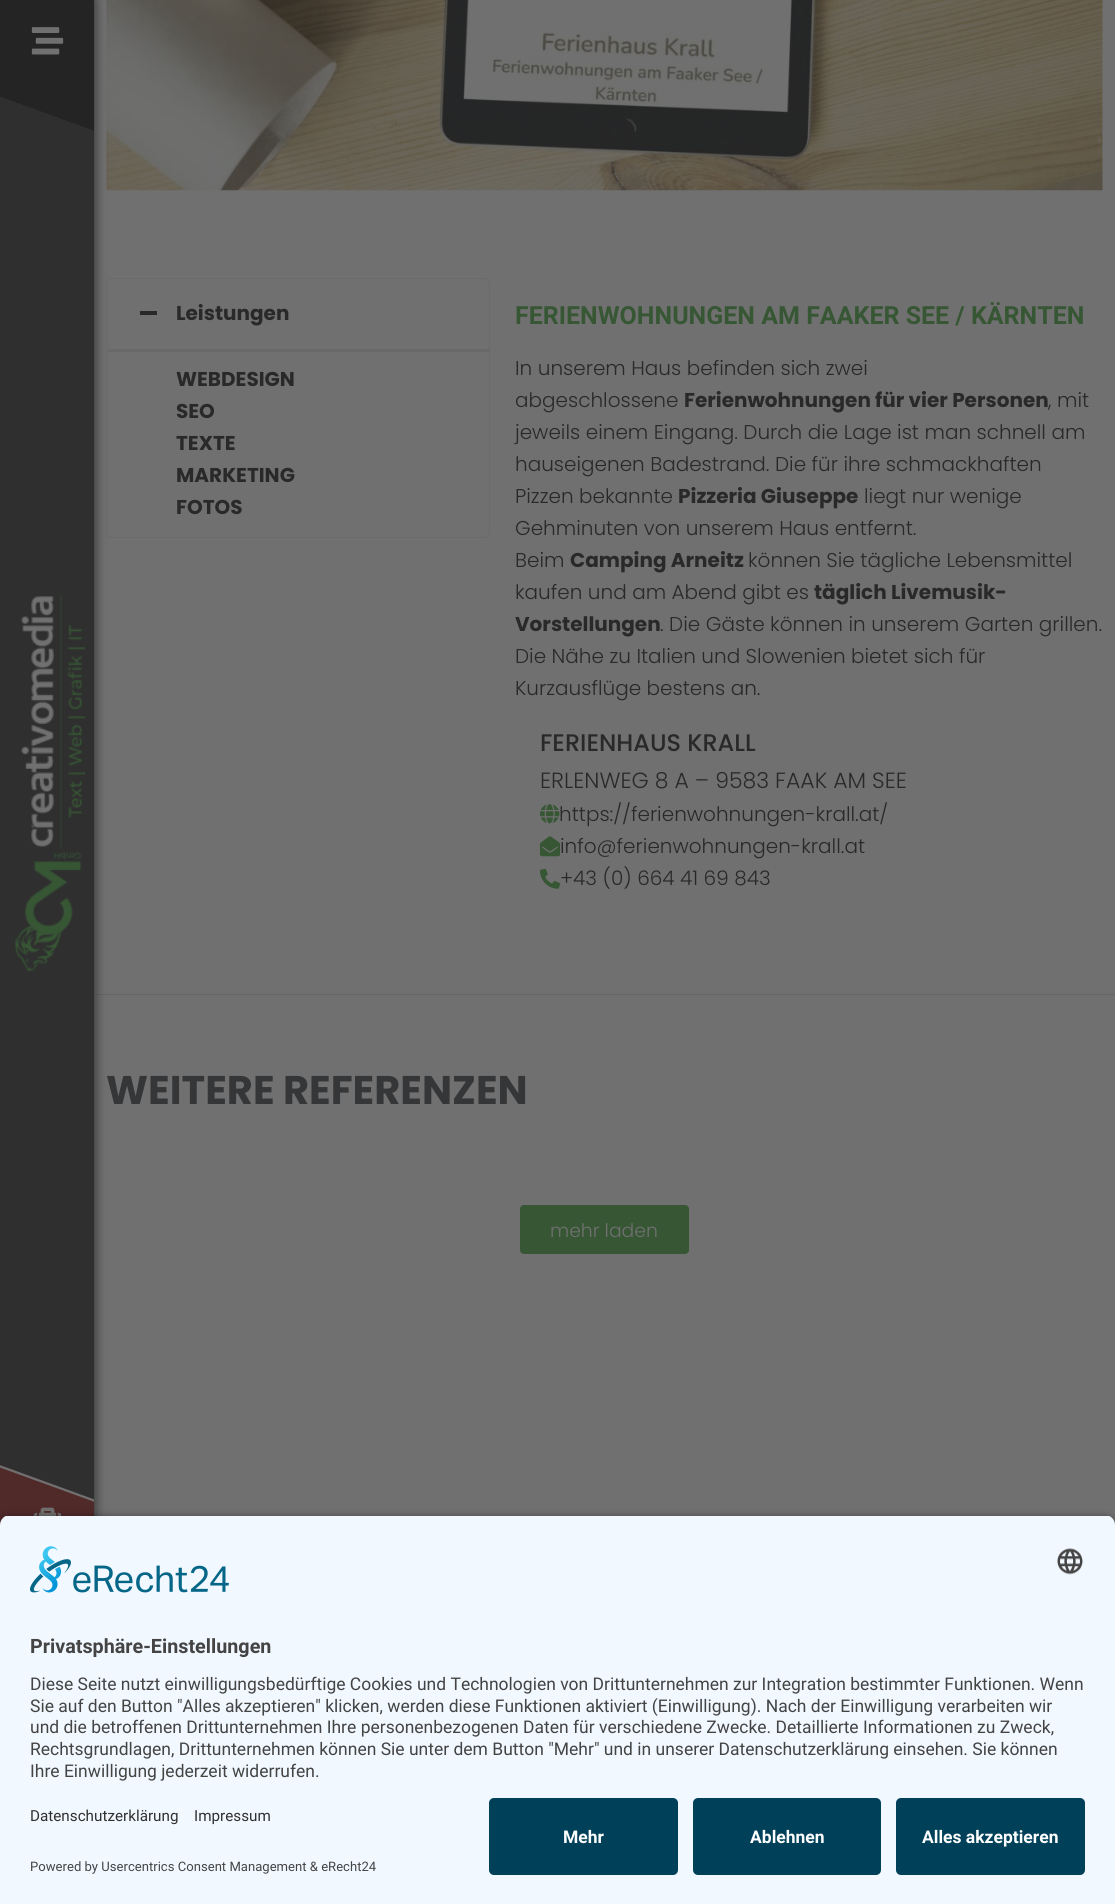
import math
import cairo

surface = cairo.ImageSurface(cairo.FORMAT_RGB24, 1115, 1904)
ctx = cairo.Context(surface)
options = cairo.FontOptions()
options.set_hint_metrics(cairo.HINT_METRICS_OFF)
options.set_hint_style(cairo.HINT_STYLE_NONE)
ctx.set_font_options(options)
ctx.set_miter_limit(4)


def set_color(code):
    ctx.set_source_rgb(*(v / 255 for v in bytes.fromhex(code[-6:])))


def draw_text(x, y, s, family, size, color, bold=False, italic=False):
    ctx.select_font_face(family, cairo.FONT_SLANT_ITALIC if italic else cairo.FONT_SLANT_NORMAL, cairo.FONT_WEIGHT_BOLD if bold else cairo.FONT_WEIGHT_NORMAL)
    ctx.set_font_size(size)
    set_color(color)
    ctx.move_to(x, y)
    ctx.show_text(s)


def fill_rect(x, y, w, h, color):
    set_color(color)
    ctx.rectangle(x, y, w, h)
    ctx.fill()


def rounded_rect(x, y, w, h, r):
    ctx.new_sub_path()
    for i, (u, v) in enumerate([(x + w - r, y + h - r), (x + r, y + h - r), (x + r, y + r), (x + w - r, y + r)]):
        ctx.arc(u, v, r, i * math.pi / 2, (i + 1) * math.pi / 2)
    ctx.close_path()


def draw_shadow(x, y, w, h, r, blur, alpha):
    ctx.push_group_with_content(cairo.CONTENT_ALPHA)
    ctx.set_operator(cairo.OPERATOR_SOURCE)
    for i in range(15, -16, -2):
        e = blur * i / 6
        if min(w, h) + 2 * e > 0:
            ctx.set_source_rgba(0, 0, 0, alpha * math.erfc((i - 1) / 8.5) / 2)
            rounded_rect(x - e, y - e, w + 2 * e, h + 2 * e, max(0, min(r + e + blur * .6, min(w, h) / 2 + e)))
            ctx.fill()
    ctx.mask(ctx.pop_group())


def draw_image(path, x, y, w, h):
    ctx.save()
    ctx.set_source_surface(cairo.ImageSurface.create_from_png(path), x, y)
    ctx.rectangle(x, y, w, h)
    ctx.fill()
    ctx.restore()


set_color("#707070")
ctx.paint()
draw_image("assets/img4.png", 106, 0, 997, 191)
rounded_rect(106.5, 278.5, 383, 259, 5.5)
set_color("#69696e")
ctx.set_line_width(1)
ctx.stroke()
fill_rect(108, 349, 381, 3, "#696969")
fill_rect(94, 994, 1021, 1, "#666666")
set_color("#242424")
draw_shadow(0, 0, 94, 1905, 0, 6, 0.99)
gradient = cairo.LinearGradient(346, 92, -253, 1738)
gradient.add_color_stop_rgba(0.07, 0.141, 0.141, 0.141, 1)
gradient.add_color_stop_rgba(0.07, 0.184, 0.184, 0.184, 1)
ctx.set_source(gradient)
ctx.rectangle(0, 0, 94, 1500)
ctx.fill()
draw_image("assets/img1.png", 31, 27, 33, 28)
draw_image("assets/img2.png", 14, 595, 71, 377)
ctx.save()
ctx.rectangle(0, 0, 94, 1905)
ctx.clip()
set_color("#502929")
ctx.new_path()
ctx.move_to(100, 1583)
ctx.line_to(-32, 1535)
ctx.line_to(-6, 1463)
ctx.line_to(126, 1511)
ctx.close_path()
ctx.fill()
set_color("#707070")
ctx.new_path()
ctx.move_to(125, 1513)
ctx.line_to(-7, 1465)
ctx.line_to(-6, 1463)
ctx.line_to(126, 1511)
ctx.close_path()
ctx.fill()
ctx.restore()
draw_image("assets/img3.png", 33, 1507, 29, 9)
fill_rect(140, 311, 17, 4, "#292929")
draw_text(176, 320, "Leistungen", "Poppins", 20, "#292929", bold=True)
draw_text(176, 386, "WEBDESIGN", "Poppins", 20, "#292929", bold=True)
draw_text(176, 418, "SEO", "Poppins", 20, "#292929", bold=True)
draw_text(176, 450, "TEXTE", "Poppins", 20, "#292929", bold=True)
draw_text(176, 482, "MARKETING", "Poppins", 20, "#292929", bold=True)
draw_text(176, 514, "FOTOS", "Poppins", 20, "#292929", bold=True)
draw_text(515, 324, "FERIENWOHNUNGEN AM FAAKER SEE / KÄRNTEN", "Roboto", 25, "#365634", bold=True)
draw_text(515, 375, "In unserem Haus befinden sich zwei", "Poppins Light", 20, "#292929")
draw_text(515, 407, "abgeschlossene", "Poppins Light", 20, "#292929")
draw_text(684, 407, "Ferienwohnungen für vier Personen", "Poppins", 20, "#292929", bold=True)
draw_text(1048, 407, ", mit", "Poppins Light", 20, "#292929")
draw_text(515, 439, "jeweils einem Eingang. Durch die Lage ist man schnell am", "Poppins Light", 20, "#292929")
draw_text(515, 471, "hauseigenen Badestrand. Die für ihre schmackhaften", "Poppins Light", 20, "#292929")
draw_text(515, 503, "Pizzen bekannte", "Poppins Light", 20, "#292929")
draw_text(678, 503, "Pizzeria Giuseppe", "Poppins", 20, "#292929", bold=True)
draw_text(864, 503, "liegt nur wenige", "Poppins Light", 20, "#292929")
draw_text(515, 535, "Gehminuten von unserem Haus entfernt.", "Poppins Light", 20, "#292929")
draw_text(515, 567, "Beim", "Poppins Light", 20, "#292929")
draw_text(570, 567, "Camping Arneitz", "Poppins", 20, "#292929", bold=True)
draw_text(748, 567, "können Sie tägliche Lebensmittel", "Poppins Light", 20, "#292929")
draw_text(515, 599, "kaufen und am Abend gibt es", "Poppins Light", 20, "#292929")
draw_text(814, 599, "täglich Livemusik-", "Poppins", 20, "#292929", bold=True)
draw_text(515, 631, "Vorstellungen", "Poppins", 20, "#292929", bold=True)
draw_text(660, 631, ". Die Gäste können in unserem Garten grillen.", "Poppins Light", 20, "#292929")
draw_text(515, 663, "Die Nähe zu Italien und Slowenien bietet sich für", "Poppins Light", 20, "#292929")
draw_text(515, 695, "Kurzausflüge bestens an.", "Poppins Light", 20, "#292929")
draw_text(540, 751, "FERIENHAUS KRALL", "Poppins Medium", 24, "#292929")
draw_text(540, 788, "ERLENWEG 8 A – 9583 FAAK AM SEE", "Poppins Light", 22, "#292929")
draw_image("assets/img5.png", 540, 804, 20, 20)
draw_text(559, 821, "https://ferienwohnungen-krall.at/", "Poppins Light", 20, "#292929")
draw_image("assets/img6.png", 540, 836, 20, 21)
draw_text(560, 853, "info@ferienwohnungen-krall.at", "Poppins Light", 20, "#292929")
draw_image("assets/img7.png", 540, 868, 20, 21)
draw_text(560, 885, "+43 (0) 664 41 69 843", "Poppins Light", 20, "#292929")
draw_text(106, 1104, "WEITERE REFERENZEN", "Poppins", 40, "#353638", bold=True)
set_color("#365634")
rounded_rect(520, 1205, 169, 49, 4)
ctx.fill()
draw_text(550, 1237, "mehr laden", "Poppins Light", 18.75, "#707070")
set_color("#000000")
draw_shadow(0, 1519, 1115, 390, 10, 4.5, 0.8)
ctx.save()
ctx.new_path()
ctx.move_to(10, 1515)
ctx.line_to(1105, 1515)
ctx.curve_to(1110.5, 1515, 1115, 1519.5, 1115, 1525)
ctx.line_to(1115, 1788)
ctx.line_to(0, 1788)
ctx.line_to(0, 1525)
ctx.curve_to(0, 1519.5, 4.5, 1515, 10, 1515)
ctx.close_path()
ctx.clip()
fill_rect(0, 1516, 1115, 272, "#f1f8ff")
ctx.restore()
draw_image("assets/img8.png", 30, 1546, 199, 47)
draw_image("assets/img9.png", 1057, 1548, 26, 27)
draw_text(30, 1653, "Privatsphäre-Einstellungen", "Roboto", 19.75, "#444444", bold=True)
draw_text(30, 1690, "Diese Seite nutzt einwilligungsbedürftige Cookies und Technologien von Drittunternehmen zur Integration bestimmter Funktionen. Wenn", "Roboto", 17.5, "#444444")
draw_text(30, 1712, "Sie auf den Button \"Alles akzeptieren\" klicken, werden diese Funktionen aktiviert (Einwilligung). Nach der Einwilligung verarbeiten wir", "Roboto", 17.5, "#444444")
draw_text(30, 1733, "und die betroffenen Drittunternehmen Ihre personenbezogenen Daten für verschiedene Zwecke. Detaillierte Informationen zu Zweck,", "Roboto", 17.5, "#444444")
draw_text(30, 1755, "Rechtsgrundlagen, Drittunternehmen können Sie unter dem Button \"Mehr\" und in unserer Datenschutzerklärung einsehen. Sie können", "Roboto", 17.5, "#444444")
draw_text(30, 1777, "Ihre Einwilligung jederzeit widerrufen.", "Roboto", 17.5, "#444444")
fill_rect(0, 1788, 1115, 116, "#f1f8ff")
draw_text(30, 1821, "Datenschutzerklärung", "Roboto", 15.25, "#303030")
draw_text(194, 1821, "Impressum", "Roboto", 15.25, "#303030")
draw_text(30, 1871, "Powered by Usercentrics Consent Management & eRecht24", "Roboto", 13.1, "#444444")
set_color("#004059")
rounded_rect(489, 1798, 189, 77, 5)
ctx.fill()
draw_text(563, 1843, "Mehr", "Roboto", 17.5, "#ffffff", bold=True)
set_color("#004059")
rounded_rect(693, 1798, 188, 77, 5)
ctx.fill()
draw_text(750, 1843, "Ablehnen", "Roboto", 17.5, "#ffffff", bold=True)
set_color("#004059")
rounded_rect(896, 1798, 189, 77, 5)
ctx.fill()
draw_text(922, 1843, "Alles akzeptieren", "Roboto", 17.5, "#ffffff", bold=True)
surface.write_to_png("output.png")
